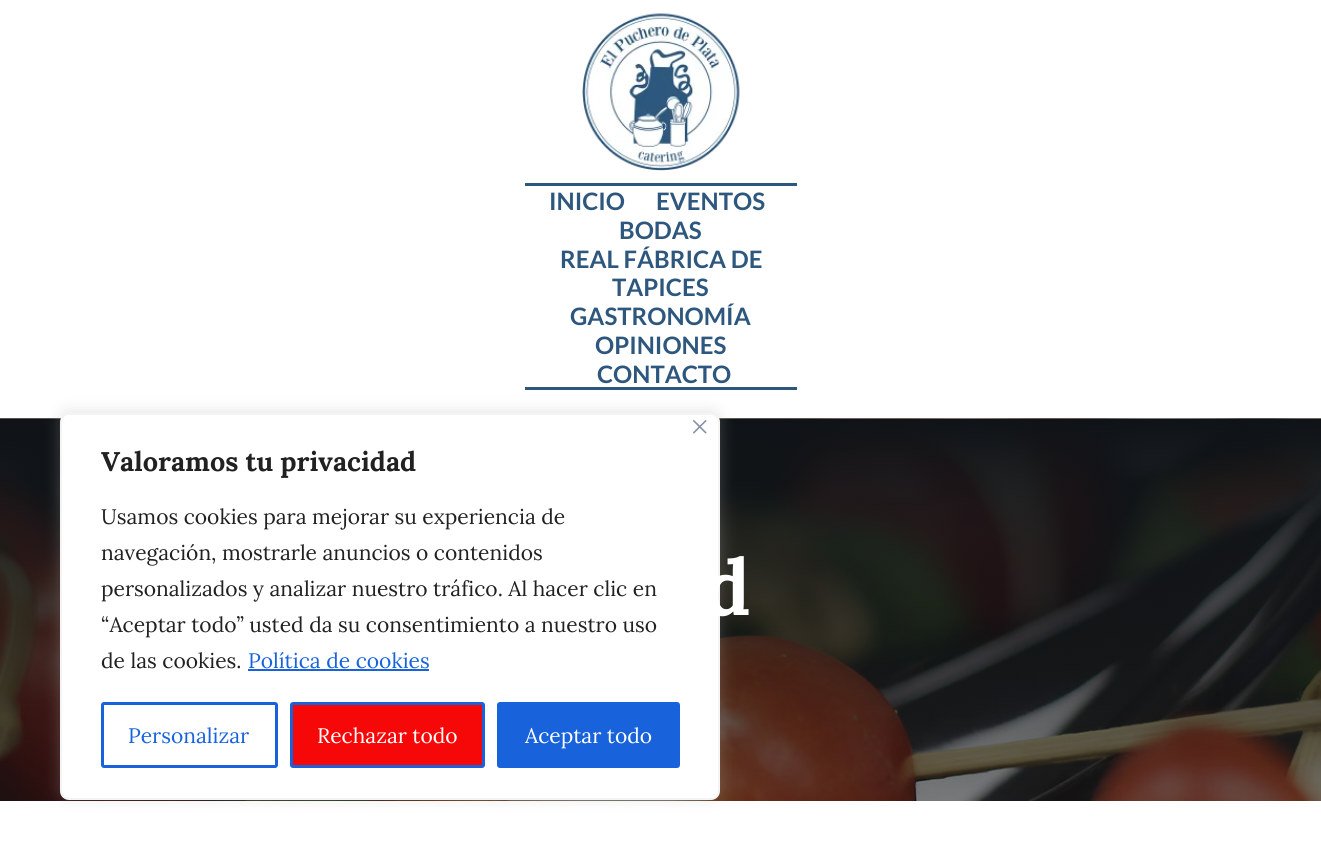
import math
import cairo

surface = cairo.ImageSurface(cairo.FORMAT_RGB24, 1321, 859)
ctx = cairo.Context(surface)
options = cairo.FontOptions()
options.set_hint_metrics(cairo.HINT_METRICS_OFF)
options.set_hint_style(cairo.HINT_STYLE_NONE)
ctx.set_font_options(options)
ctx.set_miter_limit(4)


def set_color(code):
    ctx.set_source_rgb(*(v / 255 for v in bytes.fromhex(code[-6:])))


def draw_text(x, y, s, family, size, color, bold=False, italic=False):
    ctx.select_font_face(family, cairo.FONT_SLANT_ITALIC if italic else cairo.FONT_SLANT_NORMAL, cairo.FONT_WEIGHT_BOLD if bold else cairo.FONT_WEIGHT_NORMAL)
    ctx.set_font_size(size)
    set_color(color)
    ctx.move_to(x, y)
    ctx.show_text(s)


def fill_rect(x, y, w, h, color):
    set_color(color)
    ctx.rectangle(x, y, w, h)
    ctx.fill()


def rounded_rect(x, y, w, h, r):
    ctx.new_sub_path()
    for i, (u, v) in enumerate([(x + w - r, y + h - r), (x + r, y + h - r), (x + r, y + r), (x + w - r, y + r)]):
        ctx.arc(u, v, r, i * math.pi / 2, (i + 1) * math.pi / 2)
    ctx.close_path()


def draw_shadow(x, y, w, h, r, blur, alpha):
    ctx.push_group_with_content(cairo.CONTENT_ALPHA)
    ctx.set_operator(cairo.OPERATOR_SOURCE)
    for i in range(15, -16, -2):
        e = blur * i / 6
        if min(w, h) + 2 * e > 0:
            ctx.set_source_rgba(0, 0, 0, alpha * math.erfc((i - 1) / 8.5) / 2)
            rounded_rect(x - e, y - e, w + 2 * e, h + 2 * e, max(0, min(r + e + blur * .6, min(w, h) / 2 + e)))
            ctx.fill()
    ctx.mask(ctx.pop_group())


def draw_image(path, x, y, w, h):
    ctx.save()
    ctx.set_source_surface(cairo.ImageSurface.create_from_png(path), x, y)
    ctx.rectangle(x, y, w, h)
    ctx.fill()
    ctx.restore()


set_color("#ffffff")
ctx.paint()
fill_rect(525, 387, 272, 3, "#2e577e")
draw_image("assets/img3.png", 0, 418, 1321, 383)
set_color("#acabab")
draw_shadow(60, 411, 660, 387, 9, 7.5, 0.3)
set_color("#ffffff")
rounded_rect(61, 414, 658, 385, 8)
ctx.fill_preserve()
set_color("#f4f4f4")
ctx.stroke()
draw_image("assets/img1.png", 693, 420, 14, 14)
draw_text(101, 471, "Valoramos tu privacidad", "Lora", 27, "#212121", bold=True)
draw_text(101, 524, "Usamos cookies para mejorar su experiencia de", "Lora", 21, "#212121")
draw_text(101, 560, "navegación, mostrarle anuncios o contenidos", "Lora", 21, "#212121")
draw_text(101, 596, "personalizados y analizar nuestro tráfico. Al hacer clic en", "Lora", 21, "#212121")
draw_text(101, 632, "“Aceptar todo” usted da su consentimiento a nuestro uso", "Lora", 21, "#212121")
draw_text(101, 668, "de las cookies.", "Lora", 21, "#212121")
draw_text(248, 668, "Política de cookies", "Lora", 21, "#1863dc")
fill_rect(248, 669, 181, 2, "#1863dc")
rounded_rect(102.5, 703.5, 174, 63, 1.5)
ctx.set_line_width(3)
ctx.stroke()
draw_text(128, 743, "Personalizar", "Lora", 21, "#1863dc")
set_color("#f70808")
rounded_rect(291.5, 703.5, 192, 63, 1.5)
ctx.fill_preserve()
set_color("#1863dc")
ctx.stroke()
draw_text(317, 743, "Rechazar todo", "Lora", 21, "#ffffff")
set_color("#1863dc")
rounded_rect(498.5, 703.5, 180, 63, 1.5)
ctx.fill_preserve()
ctx.stroke()
draw_text(525, 743, "Aceptar todo", "Lora", 21, "#ffffff")
draw_image("assets/img2.png", 582, 13, 158, 158)
fill_rect(525, 183, 272, 3, "#2e577e")
draw_text(549, 210, "INICIO", "Lato", 24, "#2e577e", bold=True)
draw_text(656, 210, "EVENTOS", "Lato", 24, "#2e577e", bold=True)
draw_text(619, 239, "BODAS", "Lato", 24, "#2e577e", bold=True)
draw_text(560, 268, "REAL FÁBRICA DE", "Lato", 24, "#2e577e", bold=True)
draw_text(612, 296, "TAPICES", "Lato", 24, "#2e577e", bold=True)
draw_text(570, 325, "GASTRONOMÍA", "Lato", 24, "#2e577e", bold=True)
draw_text(595, 354, "OPINIONES", "Lato", 24, "#2e577e", bold=True)
draw_text(597, 383, "CONTACTO", "Lato", 24, "#2e577e", bold=True)
draw_text(704, 615, "d", "Lora", 78, "#ffffff", bold=True)
surface.write_to_png("output.png")
